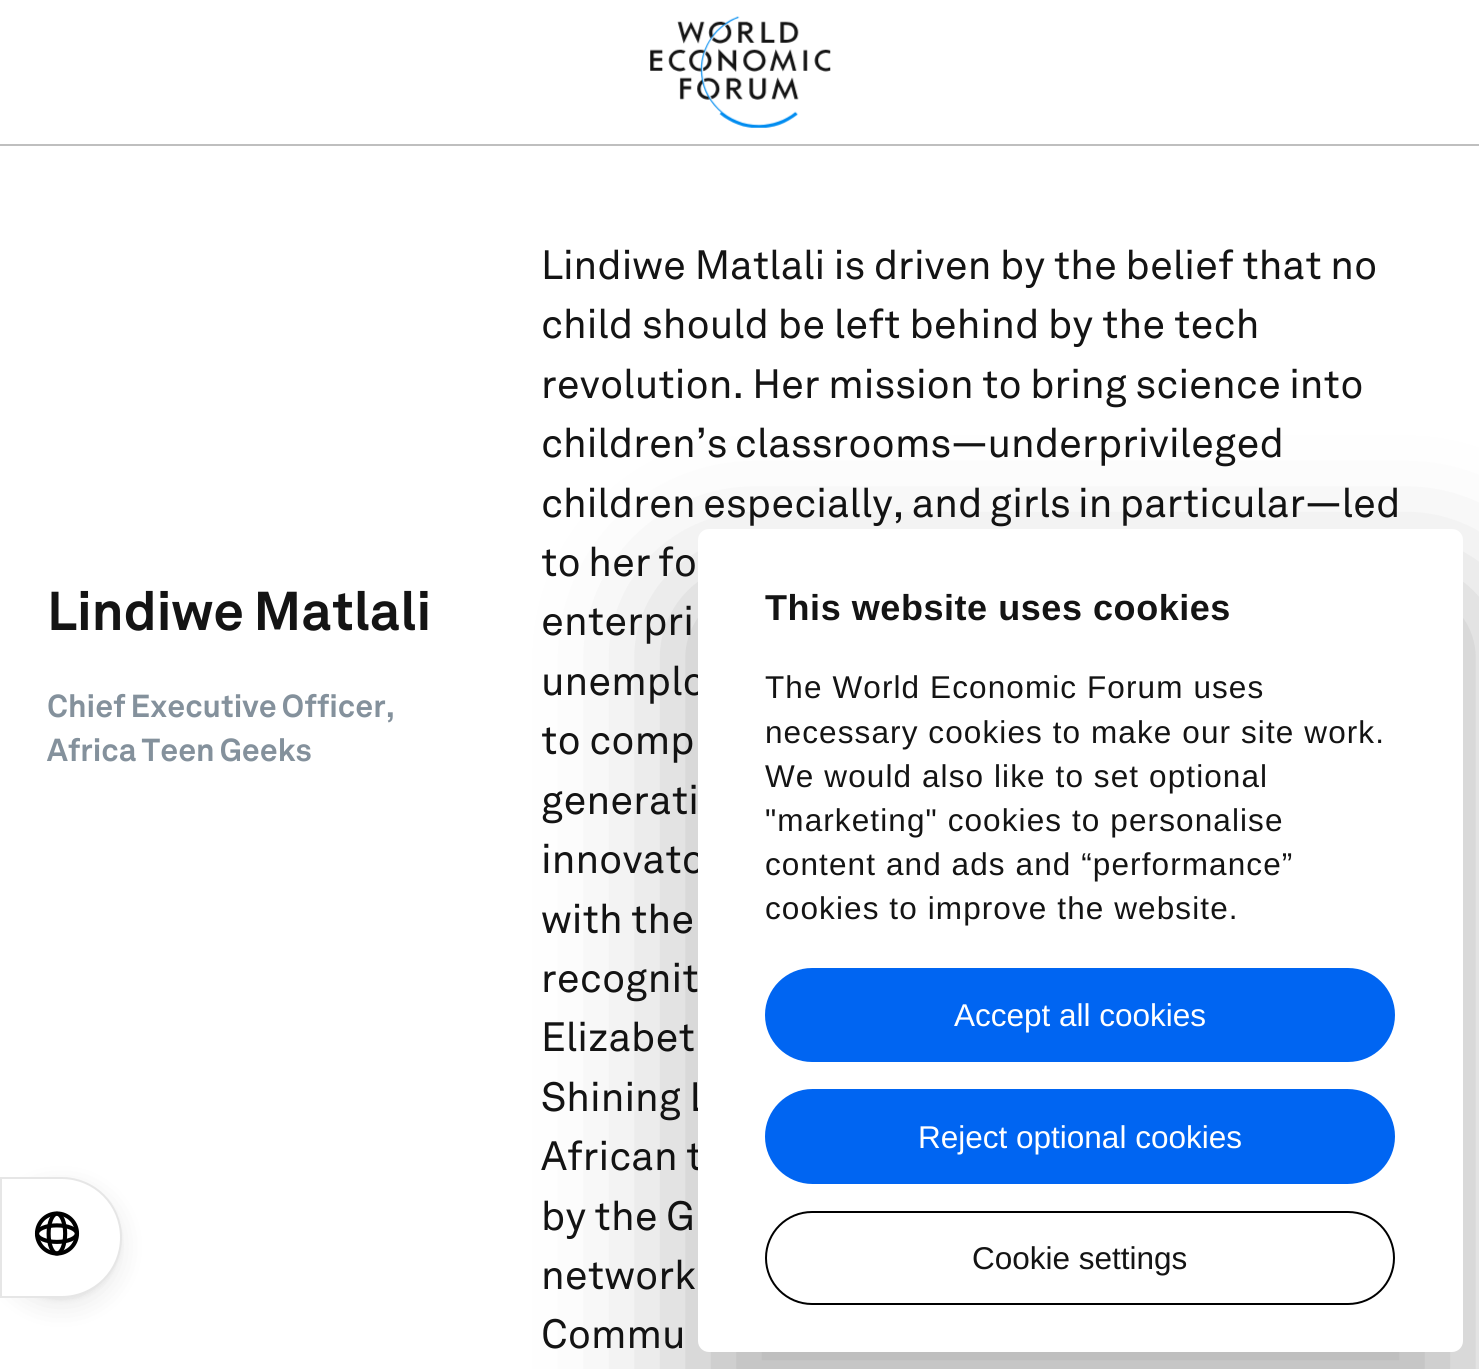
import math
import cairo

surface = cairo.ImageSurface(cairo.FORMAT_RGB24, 1479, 1369)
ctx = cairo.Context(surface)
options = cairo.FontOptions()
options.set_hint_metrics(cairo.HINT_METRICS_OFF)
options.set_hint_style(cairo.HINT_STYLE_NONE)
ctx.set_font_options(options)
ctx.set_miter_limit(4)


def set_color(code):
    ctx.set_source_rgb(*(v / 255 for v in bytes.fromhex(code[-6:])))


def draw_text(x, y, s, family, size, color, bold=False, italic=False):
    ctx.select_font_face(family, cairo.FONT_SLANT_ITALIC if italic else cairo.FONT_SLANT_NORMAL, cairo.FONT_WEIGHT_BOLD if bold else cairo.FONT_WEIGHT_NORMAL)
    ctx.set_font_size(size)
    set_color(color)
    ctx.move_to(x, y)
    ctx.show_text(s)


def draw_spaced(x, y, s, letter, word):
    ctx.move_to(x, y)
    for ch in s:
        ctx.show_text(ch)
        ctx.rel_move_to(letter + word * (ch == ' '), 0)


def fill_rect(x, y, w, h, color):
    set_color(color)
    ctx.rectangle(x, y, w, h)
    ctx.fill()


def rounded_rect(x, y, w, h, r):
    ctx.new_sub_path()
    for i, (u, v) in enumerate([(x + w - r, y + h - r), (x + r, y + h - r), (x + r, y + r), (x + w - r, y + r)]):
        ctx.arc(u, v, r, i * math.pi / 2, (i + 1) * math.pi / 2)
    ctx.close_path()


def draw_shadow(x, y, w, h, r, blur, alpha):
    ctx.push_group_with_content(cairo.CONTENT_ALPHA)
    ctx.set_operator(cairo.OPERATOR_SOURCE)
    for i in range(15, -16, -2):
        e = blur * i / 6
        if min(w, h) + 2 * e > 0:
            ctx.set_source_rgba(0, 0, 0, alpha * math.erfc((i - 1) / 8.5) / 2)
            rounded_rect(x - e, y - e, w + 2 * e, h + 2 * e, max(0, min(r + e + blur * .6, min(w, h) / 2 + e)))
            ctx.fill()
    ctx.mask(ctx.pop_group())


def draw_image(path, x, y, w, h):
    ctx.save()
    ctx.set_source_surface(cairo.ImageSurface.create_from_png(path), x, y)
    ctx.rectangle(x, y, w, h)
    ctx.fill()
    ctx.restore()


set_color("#ffffff")
ctx.paint()
fill_rect(0, 144, 1479, 2, "#bfbfbf")
draw_image("assets/img1.png", 650, 16, 181, 112)
ctx.select_font_face("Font", cairo.FONT_SLANT_NORMAL, cairo.FONT_WEIGHT_BOLD)
ctx.set_font_size(54)
set_color("#141414")
draw_spaced(47, 630, "Lindiwe Matlali", 0, -2)
ctx.set_font_size(31.5)
set_color("#84919c")
draw_spaced(47, 717, "Chief Executive Officer,", 0, -2)
draw_spaced(47, 761, "Africa Teen Geeks", 0, -2)
ctx.select_font_face("Font")
ctx.set_font_size(40.5)
set_color("#141414")
draw_spaced(541, 279, "Lindiwe Matlali is driven by the belief that no", 0, -0.75)
draw_spaced(541, 338, "child should be left behind by the tech", 0, -0.5)
draw_spaced(541, 398, "revolution. Her mission to bring science into", 0, -1)
draw_spaced(541, 457, "children’s classrooms—underprivileged", 0, -2)
draw_spaced(541, 517, "children especially, and girls in particular—led", 0, -2)
draw_spaced(541, 576, "to her fo", 0, -2)
draw_spaced(541, 635, "enterpri", 0, -1)
draw_spaced(541, 695, "unemplo", 0, -1)
draw_spaced(541, 754, "to comp", 0, -1)
draw_spaced(541, 814, "generati", 0, -2)
draw_spaced(541, 873, "innovato", 0, -1)
draw_spaced(541, 933, "with the", 0, -1)
draw_spaced(541, 992, "recognit", 0, -1)
draw_spaced(541, 1051, "Elizabet", 0, -1)
draw_spaced(541, 1111, "Shining L", 0, -1)
draw_spaced(541, 1170, "African t", 0, -1)
draw_spaced(541, 1230, "by the G", 0, -1)
draw_spaced(541, 1289, "network", 0, -1)
draw_spaced(541, 1348, "Commu", 0, -1)
set_color("#000000")
draw_shadow(0, 1179, 122, 122, 61, 2, 0.04)
draw_shadow(0, 1186, 122, 121, 60.5, 13.5, 0.08)
set_color("#ffffff")
ctx.new_path()
ctx.move_to(1, 1178)
ctx.line_to(61.5, 1178)
ctx.curve_to(94.5, 1178, 121, 1204.5, 121, 1237.5)
ctx.curve_to(121, 1270.5, 94.5, 1297, 61.5, 1297)
ctx.line_to(1, 1297)
ctx.close_path()
ctx.fill_preserve()
set_color("#e6e6e6")
ctx.stroke()
draw_image("assets/img2.png", 34, 1211, 46, 45)
set_color("#000000")
draw_shadow(698, 601, 765, 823, 11, 76.5, 0.3)
set_color("#ffffff")
rounded_rect(698, 529, 765, 823, 11)
ctx.fill()
ctx.select_font_face("Liberation Sans", cairo.FONT_SLANT_NORMAL, cairo.FONT_WEIGHT_BOLD)
ctx.set_font_size(36)
set_color("#141414")
draw_spaced(765, 620, "This website uses cookies", 0.55, 0)
ctx.select_font_face("Liberation Sans")
ctx.set_font_size(31.5)
draw_spaced(765, 698, "The World Economic Forum uses", 1.1, 0)
draw_spaced(765, 743, "necessary cookies to make our site work.", 1.1, 0)
draw_spaced(765, 787, "We would also like to set optional", 1.1, 0)
draw_spaced(765, 831, "\"marketing\" cookies to personalise", 1.1, 0)
draw_spaced(765, 875, "content and ads and “performance”", 1.1, 0)
draw_spaced(765, 919, "cookies to improve the website.", 1.1, 0)
set_color("#0065f2")
rounded_rect(766, 969, 628, 92, 46)
ctx.fill_preserve()
ctx.stroke()
draw_text(954, 1026, "Accept all cookies", "Liberation Sans", 31.5, "#ffffff")
set_color("#0065f2")
rounded_rect(766, 1090, 628, 93, 46.5)
ctx.fill_preserve()
ctx.stroke()
draw_text(918, 1148, "Reject optional cookies", "Liberation Sans", 31.5, "#ffffff")
rounded_rect(766, 1212, 628, 92, 46)
set_color("#000000")
ctx.stroke()
draw_text(972, 1269, "Cookie settings", "Liberation Sans", 31.5, "#141414")
surface.write_to_png("output.png")
